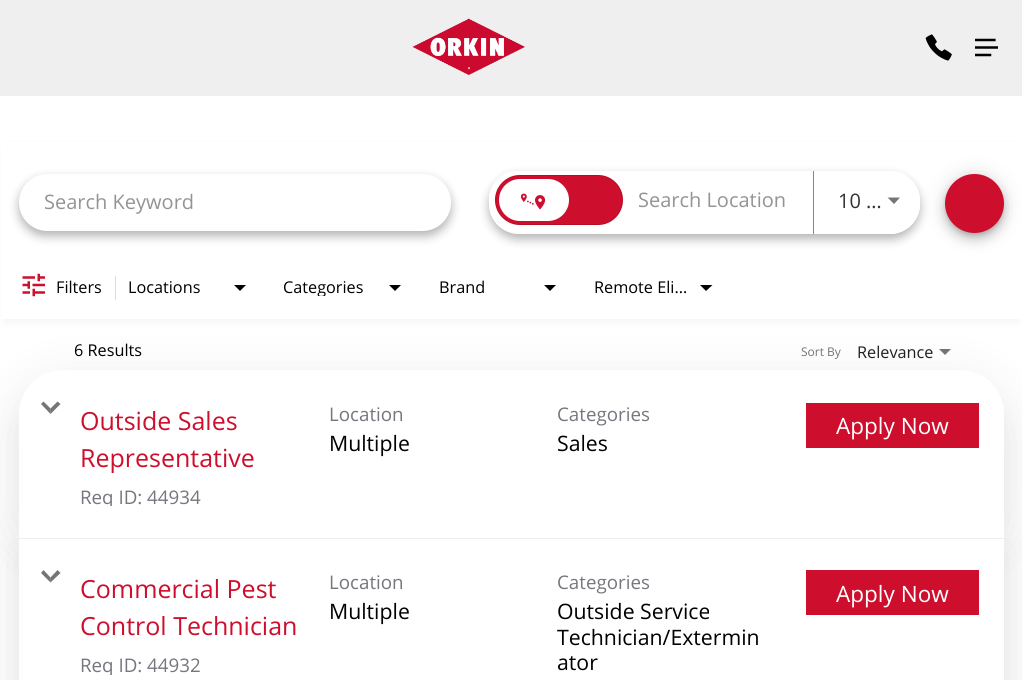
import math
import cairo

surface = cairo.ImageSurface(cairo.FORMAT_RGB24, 1022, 680)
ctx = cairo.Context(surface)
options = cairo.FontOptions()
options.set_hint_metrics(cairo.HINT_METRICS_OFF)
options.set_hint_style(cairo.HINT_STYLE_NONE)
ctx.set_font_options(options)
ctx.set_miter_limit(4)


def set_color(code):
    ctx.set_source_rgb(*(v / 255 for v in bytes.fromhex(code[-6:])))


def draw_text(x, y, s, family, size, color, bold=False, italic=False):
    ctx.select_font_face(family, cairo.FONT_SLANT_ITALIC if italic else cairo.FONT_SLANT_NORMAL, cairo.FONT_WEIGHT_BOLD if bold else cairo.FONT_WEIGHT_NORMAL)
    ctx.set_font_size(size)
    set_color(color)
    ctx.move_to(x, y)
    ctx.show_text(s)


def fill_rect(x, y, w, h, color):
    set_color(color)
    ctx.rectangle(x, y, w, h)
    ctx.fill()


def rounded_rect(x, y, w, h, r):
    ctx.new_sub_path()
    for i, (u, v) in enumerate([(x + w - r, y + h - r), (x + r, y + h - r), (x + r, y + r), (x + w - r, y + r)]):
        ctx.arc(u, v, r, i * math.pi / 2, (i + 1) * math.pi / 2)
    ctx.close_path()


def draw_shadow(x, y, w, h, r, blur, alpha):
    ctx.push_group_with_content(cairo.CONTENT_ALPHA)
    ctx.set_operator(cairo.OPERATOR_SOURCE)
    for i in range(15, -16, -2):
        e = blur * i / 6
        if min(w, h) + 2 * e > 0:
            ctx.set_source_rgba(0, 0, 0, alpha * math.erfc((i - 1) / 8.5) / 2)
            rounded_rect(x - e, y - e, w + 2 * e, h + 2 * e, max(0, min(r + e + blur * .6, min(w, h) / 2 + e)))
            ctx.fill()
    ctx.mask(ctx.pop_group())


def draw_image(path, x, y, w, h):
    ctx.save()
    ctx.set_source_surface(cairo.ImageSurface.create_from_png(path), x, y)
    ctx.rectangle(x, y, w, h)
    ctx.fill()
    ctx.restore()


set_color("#ffffff")
ctx.paint()
fill_rect(0, 0, 1022, 96, "#efeff0")
draw_image("assets/img1.png", 412, 18, 113, 57)
draw_image("assets/img2.png", 925, 34, 27, 27)
draw_image("assets/img3.png", 975, 38, 23, 19)
set_color("#000000")
draw_shadow(4, 145, 1015, 178, 0, 4, 0.04)
fill_rect(1, 142, 1021, 177, "#ffffff")
set_color("#000000")
draw_shadow(19, 179, 432, 57, 28.5, 5, 0.3)
set_color("#ffffff")
rounded_rect(19, 174, 432, 57, 28.5)
ctx.fill()
draw_text(44, 209, "Search Keyword", "Open Sans", 20, "#949494")
ctx.save()
ctx.set_fill_rule(cairo.FILL_RULE_EVEN_ODD)
ctx.new_path()
ctx.move_to(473, 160)
ctx.line_to(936, 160)
ctx.line_to(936, 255)
ctx.line_to(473, 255)
ctx.close_path()
ctx.move_to(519, 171)
ctx.line_to(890, 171)
ctx.curve_to(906.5, 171, 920, 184.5, 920, 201)
ctx.line_to(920, 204)
ctx.curve_to(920, 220.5, 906.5, 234, 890, 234)
ctx.line_to(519, 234)
ctx.curve_to(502.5, 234, 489, 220.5, 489, 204)
ctx.line_to(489, 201)
ctx.curve_to(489, 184.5, 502.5, 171, 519, 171)
ctx.close_path()
ctx.clip()
set_color("#000000")
draw_shadow(489, 176, 431, 63, 30, 5, 0.3)
ctx.restore()
set_color("#ffffff")
rounded_rect(489, 171, 314, 58, 29)
ctx.fill()
rounded_rect(489, 171, 140, 58, 29)
ctx.fill()
set_color("#ce0e2d")
rounded_rect(495, 175, 128, 50, 25)
ctx.fill()
rounded_rect(495.5, 175.5, 127, 49, 24.5)
ctx.set_source_rgba(0, 0, 0, 0.12)
ctx.set_line_width(1)
ctx.stroke()
set_color("#ce0e2d")
ctx.new_path()
ctx.move_to(520, 176)
ctx.line_to(571, 176)
ctx.line_to(571, 224)
ctx.line_to(520, 224)
ctx.curve_to(506.5, 224, 496, 213.5, 496, 200)
ctx.curve_to(496, 186.5, 506.5, 176, 520, 176)
ctx.close_path()
ctx.fill()
set_color("#ffffff")
rounded_rect(499, 179, 70, 42, 21)
ctx.fill()
draw_image("assets/img4.png", 520, 193, 26, 17)
set_color("#ce0e2d")
ctx.new_path()
ctx.move_to(571, 176)
ctx.line_to(597, 176)
ctx.curve_to(610.5, 176, 621, 186.5, 621, 200)
ctx.curve_to(621, 213.5, 610.5, 224, 597, 224)
ctx.line_to(571, 224)
ctx.close_path()
ctx.fill()
draw_text(638, 207, "Search Location", "Open Sans", 20, "#949494")
set_color("#ffffff")
ctx.new_path()
ctx.move_to(813, 171)
ctx.line_to(890, 171)
ctx.curve_to(906.5, 171, 920, 184.5, 920, 201)
ctx.line_to(920, 204)
ctx.curve_to(920, 220.5, 906.5, 234, 890, 234)
ctx.line_to(813, 234)
ctx.close_path()
ctx.fill()
fill_rect(813, 171, 1, 63, "#888888")
draw_text(838, 208, "10 …", "Open Sans", 20, "#333333")
set_color("#757575")
ctx.new_path()
ctx.move_to(887.5, 197.5)
ctx.line_to(900, 197.5)
ctx.line_to(894, 204)
ctx.close_path()
ctx.fill()
set_color("#000000")
draw_shadow(945, 175, 59, 59, 29.5, 11, 0.12)
draw_shadow(945, 181, 59, 59, 29.5, 6, 0.14)
draw_shadow(946, 179, 57, 56, 28, 3, 0.2)
set_color("#ce0e2d")
ctx.arc(974.5, 203.5, 29.5, 0, 2 * math.pi)
ctx.fill()
draw_image("assets/img5.png", 22, 273, 23, 24)
fill_rect(115, 276, 1, 24, "#dddddd")
draw_text(56, 293, "Filters", "Open Sans", 16.25, "#000000")
draw_text(128, 293, "Locations", "Open Sans", 16.25, "#000000")
ctx.new_path()
ctx.move_to(234, 285)
ctx.line_to(246, 285)
ctx.line_to(240, 291)
ctx.close_path()
ctx.fill()
ctx.save()
ctx.rectangle(284, 279, 101, 17)
ctx.clip()
draw_text(283, 293, "Categories", "Open Sans", 16.25, "#000000")
ctx.restore()
ctx.new_path()
ctx.move_to(389, 285)
ctx.line_to(401, 285)
ctx.line_to(395, 291)
ctx.close_path()
ctx.fill()
draw_text(439, 293, "Brand", "Open Sans", 16.25, "#000000")
ctx.new_path()
ctx.move_to(544, 285)
ctx.line_to(556, 285)
ctx.line_to(550, 291)
ctx.close_path()
ctx.fill()
draw_text(594, 293, "Remote Eli…", "Open Sans", 16.25, "#000000")
ctx.new_path()
ctx.move_to(700, 285)
ctx.line_to(712.5, 285)
ctx.line_to(706, 291)
ctx.close_path()
ctx.fill()
draw_text(74, 356, "6 Results", "Open Sans", 16.25, "#000000")
draw_text(801, 356, "Sort By", "Open Sans", 12, "#757575")
draw_text(857, 358, "Relevance", "Open Sans", 16.25, "#212121")
set_color("#757575")
ctx.new_path()
ctx.move_to(939, 349)
ctx.line_to(951, 349)
ctx.line_to(945, 355)
ctx.close_path()
ctx.fill()
set_color("#000000")
draw_shadow(10, 371, 1003, 187, 53, 24, 0.05)
draw_shadow(15, 391, 993, 177, 48, 19.5, 0.06)
draw_shadow(10, 540, 1003, 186, 0, 24, 0.05)
draw_shadow(15, 560, 993, 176, 0, 19.5, 0.06)
set_color("#ffffff")
ctx.new_path()
ctx.move_to(63, 370)
ctx.line_to(960, 370)
ctx.curve_to(984.5, 370, 1004, 389.5, 1004, 414)
ctx.line_to(1004, 539)
ctx.line_to(19, 539)
ctx.line_to(19, 414)
ctx.curve_to(19, 389.5, 38.5, 370, 63, 370)
ctx.close_path()
ctx.fill()
set_color("#757575")
ctx.new_path()
ctx.move_to(60.5, 404)
ctx.line_to(50.5, 414)
ctx.line_to(50.5, 408.5)
ctx.line_to(57.5, 401.5)
ctx.close_path()
ctx.fill()
ctx.set_source_rgba(0, 0, 0, 0.54)
ctx.new_path()
ctx.move_to(50.5, 414)
ctx.line_to(41, 404)
ctx.line_to(43.5, 401.5)
ctx.line_to(50.5, 408.5)
ctx.close_path()
ctx.fill()
draw_text(80, 430, "Outside Sales", "Open Sans", 25, "#ce0e2d")
draw_text(80, 467, "Representative", "Open Sans", 25, "#ce0e2d")
ctx.save()
ctx.rectangle(80, 403, 899, 103)
ctx.clip()
draw_text(80, 504, "Req ID:", "Open Sans", 18.75, "#76767e")
ctx.restore()
draw_text(147, 504, "44934", "Open Sans", 18.75, "#76767e")
draw_text(329, 421, "Location", "Open Sans", 18.75, "#76767e")
draw_text(329, 451, "Multiple", "Open Sans", 21.25, "#000000")
draw_text(557, 421, "Categories", "Open Sans", 18.75, "#76767e")
draw_text(557, 451, "Sales", "Open Sans", 21.25, "#000000")
fill_rect(806, 403, 173, 45, "#ce0e2d")
draw_text(836, 434, "Apply Now", "Open Sans", 22.5, "#ffffff")
fill_rect(19, 538, 985, 1, "#eeeeee")
fill_rect(19, 539, 985, 141, "#ffffff")
set_color("#757575")
ctx.new_path()
ctx.move_to(60.5, 573)
ctx.line_to(50.5, 582.5)
ctx.line_to(50.5, 577.5)
ctx.line_to(57.5, 570)
ctx.close_path()
ctx.fill()
ctx.set_source_rgba(0, 0, 0, 0.54)
ctx.new_path()
ctx.move_to(50.5, 582.5)
ctx.line_to(41, 573)
ctx.line_to(43.5, 570)
ctx.line_to(50.5, 577.5)
ctx.close_path()
ctx.fill()
draw_text(80, 598, "Commercial Pest", "Open Sans", 25, "#ce0e2d")
draw_text(80, 635, "Control Technician", "Open Sans", 25, "#ce0e2d")
ctx.save()
ctx.rectangle(80, 570, 899, 105)
ctx.clip()
draw_text(80, 672, "Req ID:", "Open Sans", 18.75, "#76767e")
ctx.restore()
draw_text(147, 672, "44932", "Open Sans", 18.75, "#76767e")
draw_text(329, 589, "Location", "Open Sans", 18.75, "#76767e")
draw_text(329, 619, "Multiple", "Open Sans", 21.25, "#000000")
draw_text(557, 589, "Categories", "Open Sans", 18.75, "#76767e")
draw_text(557, 619, "Outside Service", "Open Sans", 21.25, "#000000")
draw_text(557, 645, "Technician/Extermin", "Open Sans", 21.25, "#000000")
draw_text(557, 670, "ator", "Open Sans", 21.25, "#000000")
fill_rect(806, 570, 173, 45, "#ce0e2d")
draw_text(836, 602, "Apply Now", "Open Sans", 22.5, "#ffffff")
surface.write_to_png("output.png")
